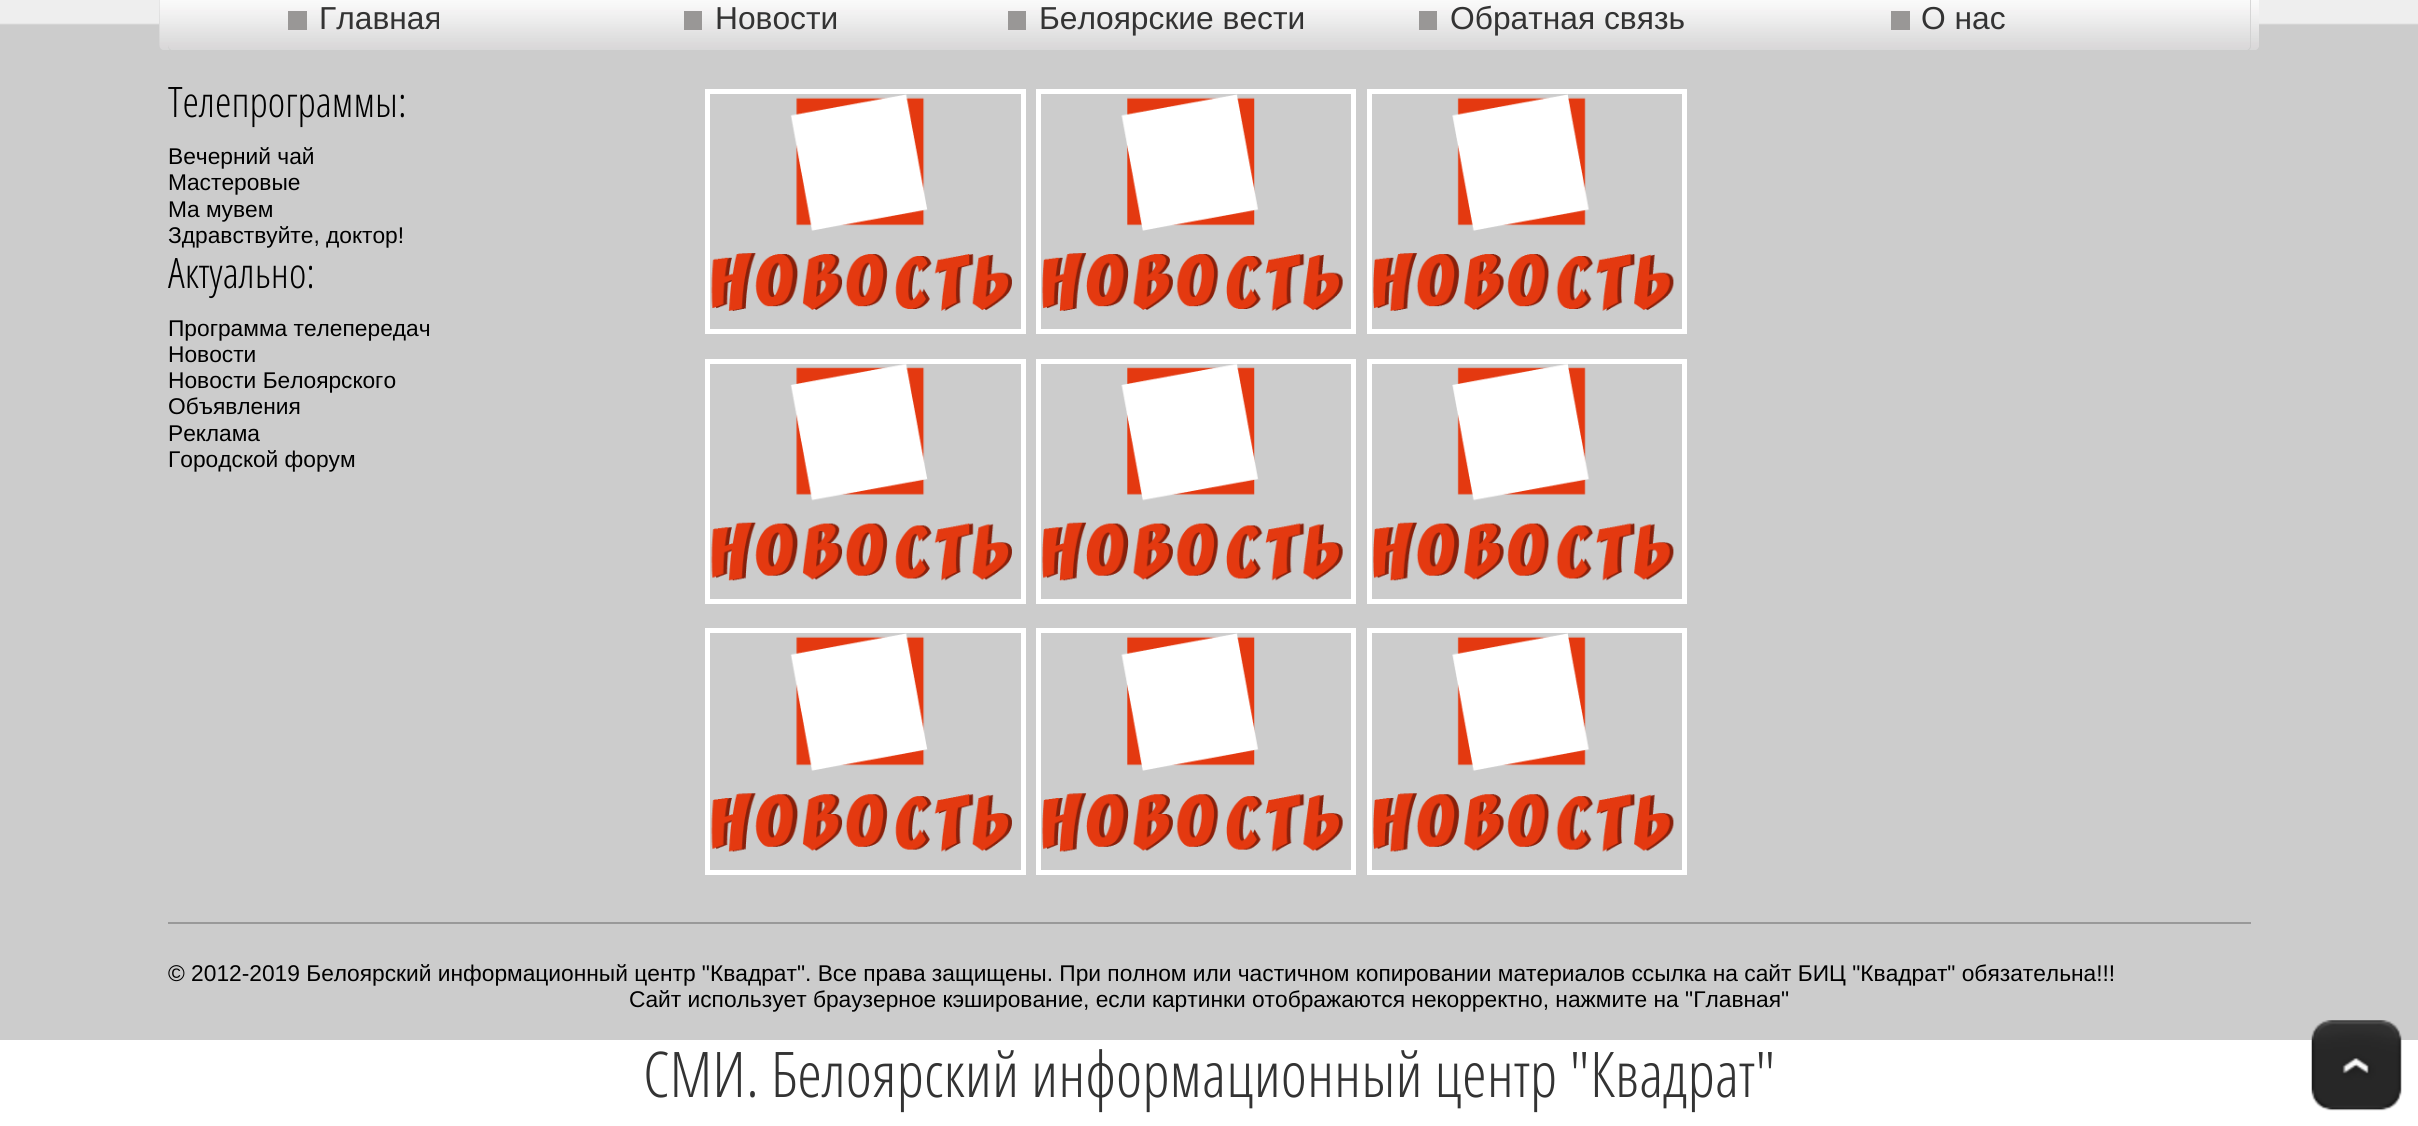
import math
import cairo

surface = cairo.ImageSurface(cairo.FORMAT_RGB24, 2418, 1126)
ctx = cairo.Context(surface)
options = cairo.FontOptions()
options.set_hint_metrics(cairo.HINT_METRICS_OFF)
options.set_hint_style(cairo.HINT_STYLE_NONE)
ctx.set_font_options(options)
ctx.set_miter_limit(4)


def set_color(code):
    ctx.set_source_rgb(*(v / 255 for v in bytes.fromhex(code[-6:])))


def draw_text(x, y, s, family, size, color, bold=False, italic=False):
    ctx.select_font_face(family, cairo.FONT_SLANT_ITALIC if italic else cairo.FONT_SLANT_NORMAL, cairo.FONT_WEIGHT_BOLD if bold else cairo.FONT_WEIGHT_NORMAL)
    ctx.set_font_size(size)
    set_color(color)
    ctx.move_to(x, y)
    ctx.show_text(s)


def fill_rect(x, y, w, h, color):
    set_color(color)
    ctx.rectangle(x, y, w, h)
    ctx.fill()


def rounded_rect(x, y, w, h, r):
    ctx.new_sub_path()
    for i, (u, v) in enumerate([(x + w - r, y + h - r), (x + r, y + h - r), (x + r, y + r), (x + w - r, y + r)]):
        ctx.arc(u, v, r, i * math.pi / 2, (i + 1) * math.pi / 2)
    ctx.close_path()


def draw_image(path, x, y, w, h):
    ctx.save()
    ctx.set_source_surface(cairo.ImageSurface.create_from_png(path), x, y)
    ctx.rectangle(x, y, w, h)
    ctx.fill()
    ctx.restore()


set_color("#ffffff")
ctx.paint()
fill_rect(0, 25, 2418, 1015, "#cccccc")
draw_image("assets/img1.png", 0, 0, 2418, 25)
rounded_rect(159, -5, 2100, 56, 5)
ctx.fill()
draw_image("assets/img2.png", 159, 0, 2100, 50)
rounded_rect(168, -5, 2083, 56, 5)
ctx.fill()
draw_image("assets/img3.png", 168, 0, 2083, 50)
fill_rect(288, 11, 19, 19, "#999796")
draw_text(319, 29, "Главная", "Liberation Sans", 31.75, "#333333")
fill_rect(684, 11, 18, 19, "#999796")
draw_text(715, 29, "Новости", "Liberation Sans", 31.75, "#333333")
fill_rect(1008, 11, 18, 19, "#999796")
draw_text(1039, 29, "Белоярские вести", "Liberation Sans", 31.75, "#333333")
fill_rect(1419, 11, 18, 19, "#999796")
draw_text(1450, 29, "Обратная связь", "Liberation Sans", 31.75, "#333333")
fill_rect(1891, 11, 19, 19, "#999796")
draw_text(1921, 29, "О нас", "Liberation Sans", 31.75, "#333333")
draw_text(168, 117, "Телепрограммы:", "Open Sans Condensed Light", 42, "#000000")
draw_text(168, 164, "Вечерний чай", "Liberation Sans", 22.75, "#000000")
draw_text(168, 190, "Мастеровые", "Liberation Sans", 22.75, "#000000")
draw_text(168, 217, "Ма мувем", "Liberation Sans", 22.75, "#000000")
draw_text(168, 243, "Здравствуйте, доктор!", "Liberation Sans", 22.75, "#000000")
draw_text(168, 288, "Актуально:", "Open Sans Condensed Light", 42, "#000000")
draw_text(168, 336, "Программа телепередач", "Liberation Sans", 22.75, "#000000")
draw_text(168, 362, "Новости", "Liberation Sans", 22.75, "#000000")
draw_text(168, 388, "Новости Белоярского", "Liberation Sans", 22.75, "#000000")
draw_text(168, 414, "Объявления", "Liberation Sans", 22.75, "#000000")
draw_text(168, 441, "Реклама", "Liberation Sans", 22.75, "#000000")
draw_text(168, 467, "Городской форум", "Liberation Sans", 22.75, "#000000")
ctx.rectangle(707.5, 91.5, 316, 240)
set_color("#ffffff")
ctx.set_line_width(5)
ctx.stroke()
draw_image("assets/img4.png", 711, 94, 301, 217)
ctx.rectangle(1038.5, 91.5, 315, 240)
ctx.stroke()
draw_image("assets/img5.png", 1042, 94, 301, 217)
ctx.rectangle(1369.5, 91.5, 315, 240)
ctx.stroke()
draw_image("assets/img6.png", 1373, 94, 301, 217)
ctx.rectangle(707.5, 361.5, 316, 240)
ctx.stroke()
draw_image("assets/img7.png", 711, 364, 301, 217)
ctx.rectangle(1038.5, 361.5, 315, 240)
ctx.stroke()
draw_image("assets/img8.png", 1042, 364, 301, 217)
ctx.rectangle(1369.5, 361.5, 315, 240)
ctx.stroke()
draw_image("assets/img9.png", 1373, 364, 301, 217)
ctx.rectangle(707.5, 630.5, 316, 242)
ctx.stroke()
draw_image("assets/img10.png", 711, 633, 301, 219)
ctx.rectangle(1038.5, 630.5, 315, 242)
ctx.stroke()
draw_image("assets/img11.png", 1042, 633, 301, 219)
ctx.rectangle(1369.5, 630.5, 315, 242)
ctx.stroke()
draw_image("assets/img12.png", 1373, 633, 301, 219)
fill_rect(168, 922, 2083, 2, "#999999")
draw_text(168, 981, "© 2012-2019 Белоярский информационный центр \"Квадрат\". Все права защищены. При полном или частичном копировании материалов ссылка на сайт БИЦ \"Квадрат\" обязательна!!!", "Liberation Sans", 22.75, "#000000")
draw_text(629, 1007, "Сайт использует браузерное кэширование, если картинки отображаются некорректно, нажмите на \"Главная\"", "Liberation Sans", 22.75, "#000000")
draw_text(643, 1097, "СМИ. Белоярский информационный центр \"Квадрат\"", "Open Sans Condensed Light", 63, "#333333")
draw_image("assets/img13.png", 2311, 1020, 91, 91)
surface.write_to_png("output.png")
